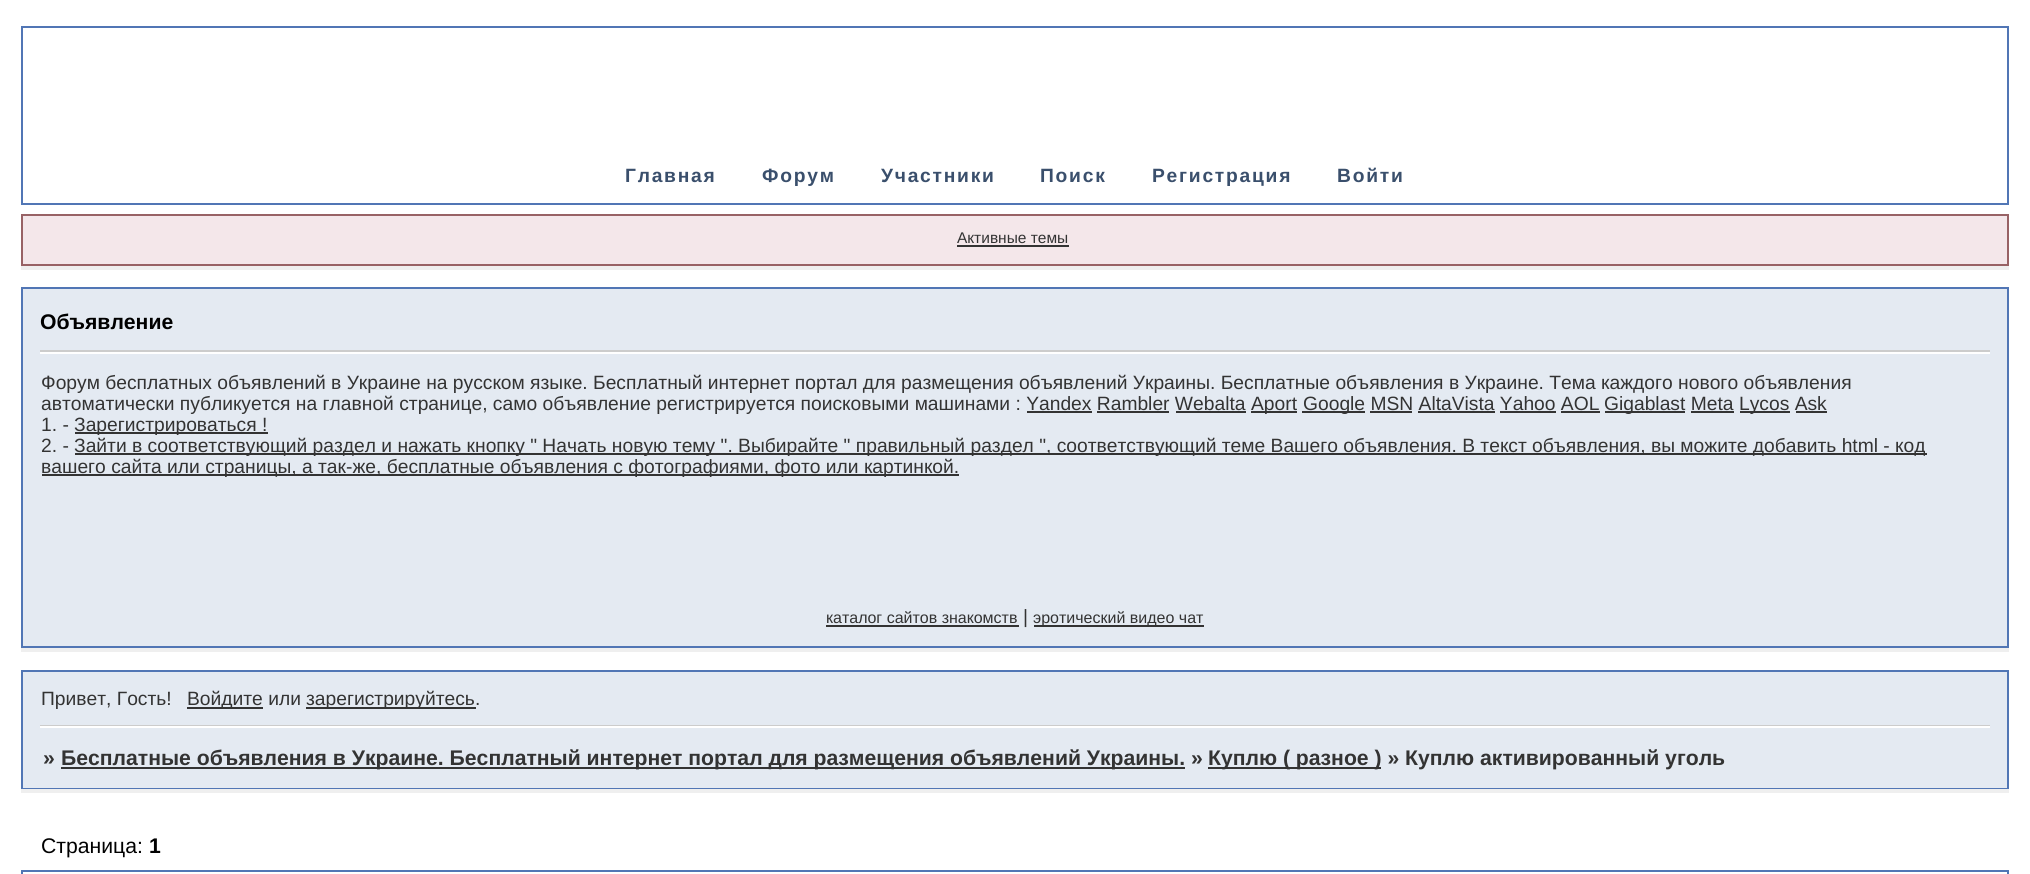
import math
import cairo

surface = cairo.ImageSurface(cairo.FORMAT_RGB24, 2030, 874)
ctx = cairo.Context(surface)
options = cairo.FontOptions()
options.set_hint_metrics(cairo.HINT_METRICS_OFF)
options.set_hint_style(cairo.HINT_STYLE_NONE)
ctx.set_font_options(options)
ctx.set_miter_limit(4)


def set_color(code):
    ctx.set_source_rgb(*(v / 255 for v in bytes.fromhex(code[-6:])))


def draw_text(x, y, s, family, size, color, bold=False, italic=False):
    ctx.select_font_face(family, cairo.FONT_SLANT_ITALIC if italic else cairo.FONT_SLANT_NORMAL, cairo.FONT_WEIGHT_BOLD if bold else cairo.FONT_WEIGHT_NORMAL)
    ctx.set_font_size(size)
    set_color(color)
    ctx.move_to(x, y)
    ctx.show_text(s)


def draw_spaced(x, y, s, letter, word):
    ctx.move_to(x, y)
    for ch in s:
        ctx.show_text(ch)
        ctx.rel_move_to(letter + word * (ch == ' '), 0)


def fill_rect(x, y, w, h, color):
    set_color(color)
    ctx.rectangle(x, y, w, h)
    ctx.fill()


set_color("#ffffff")
ctx.paint()
fill_rect(21, 26, 1988, 2, "#5176b5")
fill_rect(2007, 26, 2, 179, "#5176b5")
fill_rect(21, 26, 2, 179, "#5176b5")
fill_rect(23, 203, 1984, 2, "#5176b5")
ctx.select_font_face("Liberation Sans", cairo.FONT_SLANT_NORMAL, cairo.FONT_WEIGHT_BOLD)
ctx.set_font_size(19.25)
set_color("#3a4f6c")
draw_spaced(625, 182, "Главная", 1.75, 0)
draw_spaced(762, 182, "Форум", 1.75, 0)
draw_spaced(881, 182, "Участники", 1.75, 0)
draw_spaced(1040, 182, "Поиск", 1.75, 0)
draw_spaced(1152, 182, "Регистрация", 1.75, 0)
draw_spaced(1337, 182, "Войти", 1.75, 0)
fill_rect(21, 266, 1988, 4, "#efefef")
set_color("#f4e7ea")
ctx.rectangle(22, 215, 1986, 50)
ctx.fill_preserve()
set_color("#986265")
ctx.stroke()
draw_text(957, 243, "Активные темы", "Liberation Sans", 15.5, "#333333")
fill_rect(957, 245, 112, 2, "#333333")
fill_rect(21, 648, 1988, 4, "#efefef")
set_color("#e4eaf2")
ctx.rectangle(22, 288, 1986, 359)
ctx.fill_preserve()
set_color("#5176b5")
ctx.stroke()
fill_rect(40, 352, 1950, 2, "#ffffff")
fill_rect(40, 350, 1950, 2, "#cccccc")
draw_text(40, 329, "Объявление", "Liberation Sans", 21.18, "#000000", bold=True)
draw_text(41, 389, "Форум бесплатных объявлений в Украине на русском языке. Бесплатный интернет портал для размещения объявлений Украины. Бесплатные объявления в Украине. Тема каждого нового объявления", "Liberation Sans", 19.25, "#333333")
draw_text(41, 410, "автоматически публикуется на главной странице, само объявление регистрируется поисковыми машинами : Yandex Rambler Webalta", "Liberation Sans", 19.25, "#333333")
fill_rect(1251, 411, 46, 2, "#333333")
draw_text(1251, 410, "Aport", "Liberation Sans", 19.25, "#333333")
fill_rect(1302, 411, 63, 2, "#333333")
draw_text(1303, 410, "Google MSN AltaVista Yahoo AOL", "Liberation Sans", 19.25, "#333333")
fill_rect(1605, 411, 80, 2, "#333333")
draw_text(1604, 410, "Gigablast Meta", "Liberation Sans", 19.25, "#333333")
fill_rect(1740, 411, 50, 2, "#333333")
draw_text(1739, 410, "Lycos Ask", "Liberation Sans", 19.25, "#333333")
fill_rect(1027, 411, 65, 2, "#333333")
fill_rect(1097, 411, 72, 2, "#333333")
fill_rect(1176, 411, 70, 2, "#333333")
fill_rect(1370, 411, 42, 2, "#333333")
fill_rect(1418, 411, 77, 2, "#333333")
fill_rect(1500, 411, 56, 2, "#333333")
fill_rect(1561, 411, 39, 2, "#333333")
fill_rect(1691, 411, 43, 2, "#333333")
fill_rect(1796, 411, 31, 2, "#333333")
draw_text(41, 431, "1. -", "Liberation Sans", 19.25, "#333333")
fill_rect(75, 432, 193, 2, "#333333")
draw_text(74, 431, "Зарегистрироваться !", "Liberation Sans", 19.25, "#333333")
draw_text(41, 452, "2. -", "Liberation Sans", 19.25, "#333333")
fill_rect(75, 453, 1852, 2, "#333333")
draw_text(74, 452, "Зайти в соответствующий раздел и нажать кнопку \" Начать новую тему \". Выбирайте \" правильный раздел \", соответствующий теме Вашего объявления. В текст объявления, вы можите добавить html - код", "Liberation Sans", 19.25, "#333333")
fill_rect(42, 474, 917, 2, "#333333")
draw_text(41, 473, "вашего сайта или страницы, а так-же, бесплатные объявления с фотографиями, фото или картинкой.", "Liberation Sans", 19.25, "#333333")
draw_text(826, 623, "каталог сайтов знакомств", "Liberation Sans", 16, "#333333")
fill_rect(826, 625, 193, 2, "#333333")
draw_text(1023, 623, "|", "Liberation Sans", 19.25, "#333333")
fill_rect(1034, 625, 170, 2, "#333333")
draw_text(1033, 623, "эротический видео чат", "Liberation Sans", 16, "#333333")
fill_rect(23, 672, 1984, 116, "#e4eaf2")
fill_rect(21, 670, 1988, 2, "#5176b5")
fill_rect(2007, 670, 2, 119, "#5176b5")
fill_rect(21, 670, 2, 58, "#5176b5")
draw_text(41, 705, "Привет, Гость!", "Liberation Sans", 19.25, "#333333")
fill_rect(187, 707, 76, 2, "#333333")
draw_text(187, 705, "Войдите или", "Liberation Sans", 19.25, "#333333")
fill_rect(306, 707, 170, 2, "#333333")
draw_text(306, 705, "зарегистрируйтесь.", "Liberation Sans", 19.25, "#333333")
fill_rect(40, 725, 1950, 1, "#cccccc")
fill_rect(40, 726, 1950, 2, "#ffffff")
fill_rect(21, 789, 1988, 4, "#efefef")
fill_rect(21, 788, 1988, 1, "#5176b5")
fill_rect(21, 725, 2, 64, "#5176b5")
draw_text(43, 765, "»", "Liberation Sans", 21.18, "#333333", bold=True)
fill_rect(61, 767, 1124, 2, "#333333")
draw_text(61, 765, "Бесплатные объявления в Украине. Бесплатный интернет портал для размещения объявлений Украины. »", "Liberation Sans", 21.18, "#333333", bold=True)
fill_rect(1208, 767, 173, 2, "#333333")
draw_text(1208, 765, "Куплю ( разное ) » Куплю активированный уголь", "Liberation Sans", 21.18, "#333333", bold=True)
draw_text(41, 853, "Страница:", "Liberation Sans", 21.18, "#000000")
draw_text(149, 853, "1", "Liberation Sans", 21.18, "#000000", bold=True)
fill_rect(21, 870, 1988, 2, "#5176b5")
fill_rect(2007, 870, 2, 4, "#5176b5")
fill_rect(21, 870, 2, 4, "#5176b5")
surface.write_to_png("output.png")
